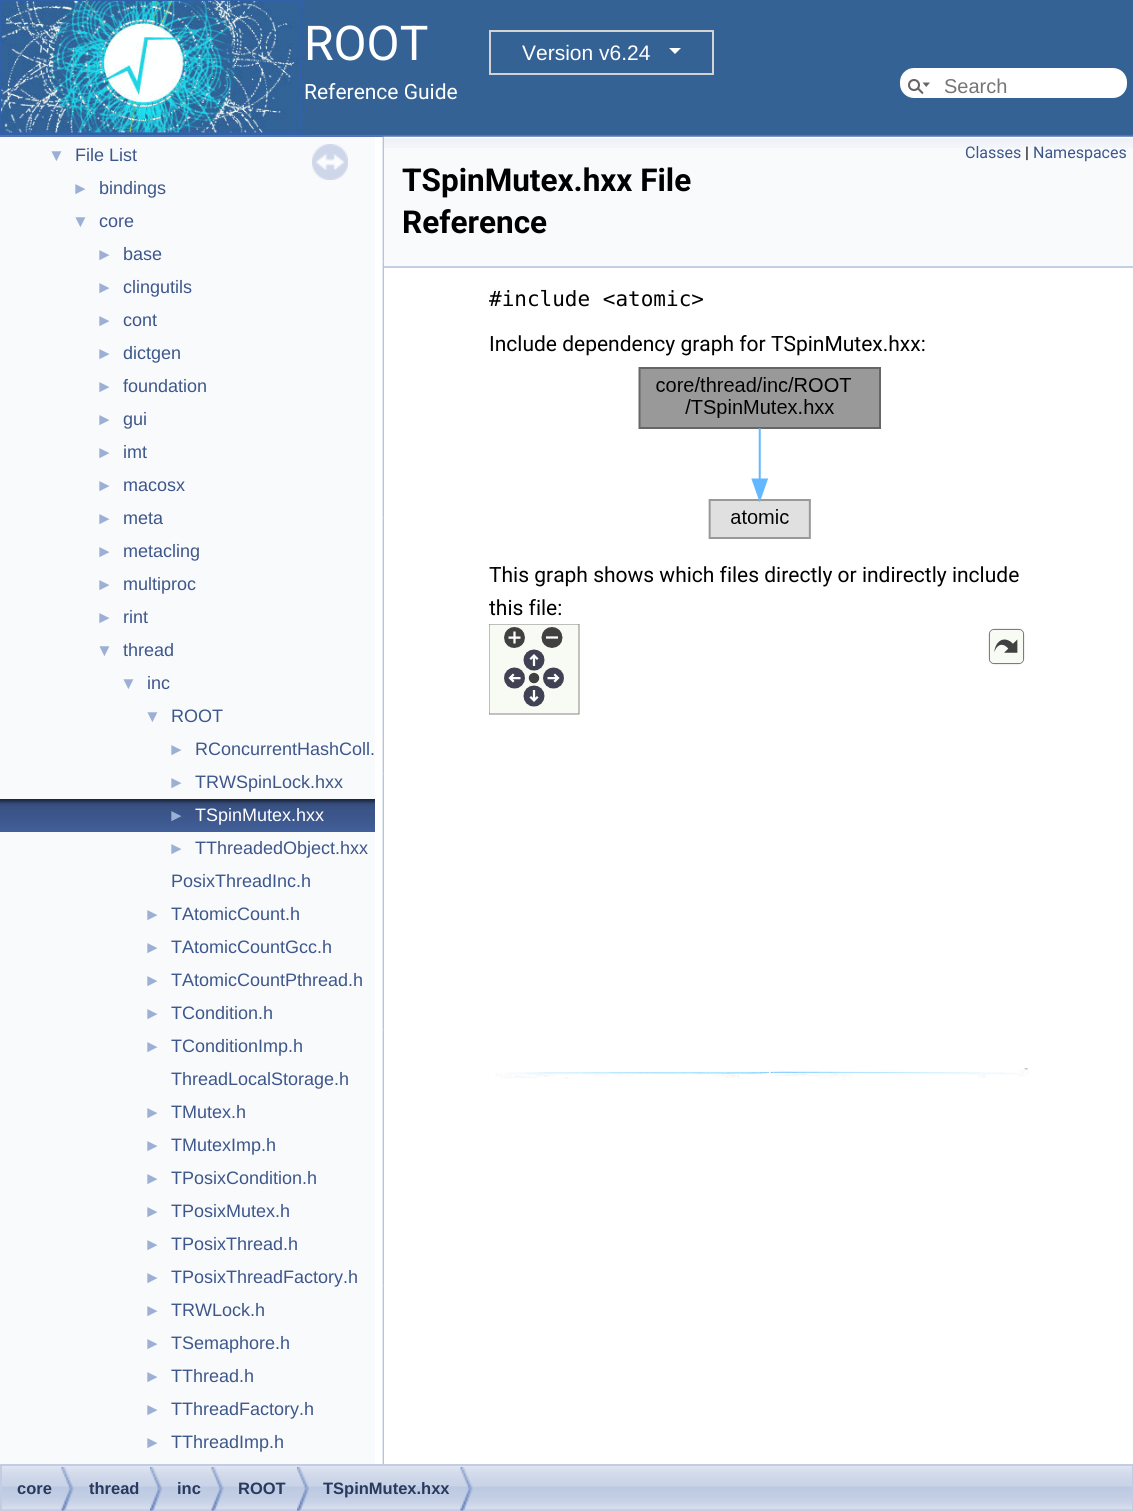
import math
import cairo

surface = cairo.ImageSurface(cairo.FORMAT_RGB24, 1133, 1511)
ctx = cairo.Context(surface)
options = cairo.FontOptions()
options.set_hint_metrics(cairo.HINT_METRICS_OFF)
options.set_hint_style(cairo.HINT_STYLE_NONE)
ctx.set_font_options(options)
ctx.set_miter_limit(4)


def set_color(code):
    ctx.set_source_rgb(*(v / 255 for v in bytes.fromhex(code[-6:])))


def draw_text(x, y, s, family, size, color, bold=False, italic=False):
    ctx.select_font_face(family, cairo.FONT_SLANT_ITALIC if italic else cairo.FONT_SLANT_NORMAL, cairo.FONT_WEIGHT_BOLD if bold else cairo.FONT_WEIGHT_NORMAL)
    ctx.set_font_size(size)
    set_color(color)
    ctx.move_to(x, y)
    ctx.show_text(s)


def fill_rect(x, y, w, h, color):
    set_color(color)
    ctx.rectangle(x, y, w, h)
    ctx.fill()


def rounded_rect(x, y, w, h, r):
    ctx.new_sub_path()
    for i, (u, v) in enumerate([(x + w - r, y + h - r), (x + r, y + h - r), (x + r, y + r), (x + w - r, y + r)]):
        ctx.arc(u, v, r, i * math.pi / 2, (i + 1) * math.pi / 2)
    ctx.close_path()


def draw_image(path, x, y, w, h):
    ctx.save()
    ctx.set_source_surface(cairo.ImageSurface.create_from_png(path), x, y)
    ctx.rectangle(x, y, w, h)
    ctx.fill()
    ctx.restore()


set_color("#ffffff")
ctx.paint()
fill_rect(0, 135, 1133, 2, "#5373b4")
fill_rect(304, 0, 829, 135, "#346295")
draw_image("assets/img1.png", 0, 0, 305, 135)
draw_text(304, 60, "ROOT", "Roboto", 48, "#ffffff")
ctx.rectangle(490, 31, 223, 43)
set_color("#d3d3d3")
ctx.stroke()
draw_text(522, 60, "Version v6.24", "Liberation Sans", 21, "#ffffff")
ctx.new_path()
ctx.move_to(669, 48)
ctx.line_to(681, 48)
ctx.line_to(675, 54)
ctx.close_path()
ctx.fill()
draw_text(304, 99, "Reference Guide", "Roboto", 21, "#ffffff")
rounded_rect(900, 68, 227, 30, 14)
ctx.fill()
draw_image("assets/img2.png", 908, 79, 22, 15)
draw_text(944, 93, "Search", "Liberation Sans", 20, "#757575")
fill_rect(0, 137, 375, 1327, "#f9fafc")
draw_image("assets/img3.png", 312, 144, 36, 36)
draw_text(48, 161, "▼", "Liberation Sans", 17, "#9cafd4")
draw_text(75, 161, "File List", "Liberation Sans", 18, "#3d578c")
draw_text(72, 194, "►", "Liberation Sans", 17, "#9cafd4")
draw_text(99, 194, "bindings", "Liberation Sans", 18, "#3d578c")
draw_text(72, 227, "▼", "Liberation Sans", 17, "#9cafd4")
draw_text(99, 227, "core", "Liberation Sans", 18, "#3d578c")
draw_text(96, 260, "►", "Liberation Sans", 17, "#9cafd4")
draw_text(123, 260, "base", "Liberation Sans", 18, "#3d578c")
draw_text(96, 293, "►", "Liberation Sans", 17, "#9cafd4")
draw_text(123, 293, "clingutils", "Liberation Sans", 18, "#3d578c")
draw_text(96, 326, "►", "Liberation Sans", 17, "#9cafd4")
draw_text(123, 326, "cont", "Liberation Sans", 18, "#3d578c")
draw_text(96, 359, "►", "Liberation Sans", 17, "#9cafd4")
draw_text(123, 359, "dictgen", "Liberation Sans", 18, "#3d578c")
draw_text(96, 392, "►", "Liberation Sans", 17, "#9cafd4")
draw_text(123, 392, "foundation", "Liberation Sans", 18, "#3d578c")
draw_text(96, 425, "►", "Liberation Sans", 17, "#9cafd4")
draw_text(123, 425, "gui", "Liberation Sans", 18, "#3d578c")
draw_text(96, 458, "►", "Liberation Sans", 17, "#9cafd4")
draw_text(123, 458, "imt", "Liberation Sans", 18, "#3d578c")
draw_text(96, 491, "►", "Liberation Sans", 17, "#9cafd4")
draw_text(123, 491, "macosx", "Liberation Sans", 18, "#3d578c")
draw_text(96, 524, "►", "Liberation Sans", 17, "#9cafd4")
draw_text(123, 524, "meta", "Liberation Sans", 18, "#3d578c")
draw_text(96, 557, "►", "Liberation Sans", 17, "#9cafd4")
draw_text(123, 557, "metacling", "Liberation Sans", 18, "#3d578c")
draw_text(96, 590, "►", "Liberation Sans", 17, "#9cafd4")
draw_text(123, 590, "multiproc", "Liberation Sans", 18, "#3d578c")
draw_text(96, 623, "►", "Liberation Sans", 17, "#9cafd4")
draw_text(123, 623, "rint", "Liberation Sans", 18, "#3d578c")
draw_text(96, 656, "▼", "Liberation Sans", 17, "#9cafd4")
draw_text(123, 656, "thread", "Liberation Sans", 18, "#3d578c")
draw_text(120, 689, "▼", "Liberation Sans", 17, "#9cafd4")
draw_text(147, 689, "inc", "Liberation Sans", 18, "#3d578c")
draw_text(144, 722, "▼", "Liberation Sans", 17, "#9cafd4")
draw_text(171, 722, "ROOT", "Liberation Sans", 18, "#3d578c")
draw_text(168, 755, "►", "Liberation Sans", 17, "#9cafd4")
draw_text(195, 755, "RConcurrentHashColl.", "Liberation Sans", 18, "#3d578c")
draw_text(168, 788, "►", "Liberation Sans", 17, "#9cafd4")
draw_text(195, 788, "TRWSpinLock.hxx", "Liberation Sans", 18, "#3d578c")
draw_image("assets/img4.png", 0, 799, 375, 33)
draw_text(168, 821, "►", "Liberation Sans", 17, "#9cafd4")
draw_text(195, 821, "TSpinMutex.hxx", "Liberation Sans", 18, "#ffffff")
draw_text(168, 854, "►", "Liberation Sans", 17, "#9cafd4")
draw_text(195, 854, "TThreadedObject.hxx", "Liberation Sans", 18, "#3d578c")
draw_text(171, 887, "PosixThreadInc.h", "Liberation Sans", 18, "#3d578c")
draw_text(144, 920, "►", "Liberation Sans", 17, "#9cafd4")
draw_text(171, 920, "TAtomicCount.h", "Liberation Sans", 18, "#3d578c")
draw_text(144, 953, "►", "Liberation Sans", 17, "#9cafd4")
draw_text(171, 953, "TAtomicCountGcc.h", "Liberation Sans", 18, "#3d578c")
draw_text(144, 986, "►", "Liberation Sans", 17, "#9cafd4")
draw_text(171, 986, "TAtomicCountPthread.h", "Liberation Sans", 18, "#3d578c")
draw_text(144, 1019, "►", "Liberation Sans", 17, "#9cafd4")
draw_text(171, 1019, "TCondition.h", "Liberation Sans", 18, "#3d578c")
draw_text(144, 1052, "►", "Liberation Sans", 17, "#9cafd4")
draw_text(171, 1052, "TConditionImp.h", "Liberation Sans", 18, "#3d578c")
draw_text(171, 1085, "ThreadLocalStorage.h", "Liberation Sans", 18, "#3d578c")
draw_text(144, 1118, "►", "Liberation Sans", 17, "#9cafd4")
draw_text(171, 1118, "TMutex.h", "Liberation Sans", 18, "#3d578c")
draw_text(144, 1151, "►", "Liberation Sans", 17, "#9cafd4")
draw_text(171, 1151, "TMutexImp.h", "Liberation Sans", 18, "#3d578c")
draw_text(144, 1184, "►", "Liberation Sans", 17, "#9cafd4")
draw_text(171, 1184, "TPosixCondition.h", "Liberation Sans", 18, "#3d578c")
draw_text(144, 1217, "►", "Liberation Sans", 17, "#9cafd4")
draw_text(171, 1217, "TPosixMutex.h", "Liberation Sans", 18, "#3d578c")
draw_text(144, 1250, "►", "Liberation Sans", 17, "#9cafd4")
draw_text(171, 1250, "TPosixThread.h", "Liberation Sans", 18, "#3d578c")
draw_text(144, 1283, "►", "Liberation Sans", 17, "#9cafd4")
draw_text(171, 1283, "TPosixThreadFactory.h", "Liberation Sans", 18, "#3d578c")
draw_text(144, 1316, "►", "Liberation Sans", 17, "#9cafd4")
draw_text(171, 1316, "TRWLock.h", "Liberation Sans", 18, "#3d578c")
draw_text(144, 1349, "►", "Liberation Sans", 17, "#9cafd4")
draw_text(171, 1349, "TSemaphore.h", "Liberation Sans", 18, "#3d578c")
draw_text(144, 1382, "►", "Liberation Sans", 17, "#9cafd4")
draw_text(171, 1382, "TThread.h", "Liberation Sans", 18, "#3d578c")
draw_text(144, 1415, "►", "Liberation Sans", 17, "#9cafd4")
draw_text(171, 1415, "TThreadFactory.h", "Liberation Sans", 18, "#3d578c")
draw_text(144, 1448, "►", "Liberation Sans", 17, "#9cafd4")
draw_text(171, 1448, "TThreadImp.h", "Liberation Sans", 18, "#3d578c")
draw_image("assets/img5.png", 382, 136, 2, 1328)
fill_rect(384, 148, 749, 118, "#f9fafc")
draw_image("assets/img6.png", 384, 136, 749, 12)
fill_rect(384, 266, 749, 2, "#c4cfe5")
draw_text(965, 158, "Classes", "Roboto", 16, "#3d578c")
draw_text(1025, 158, "|", "Roboto", 16, "#000000")
draw_text(1033, 158, "Namespaces", "Roboto", 16, "#3d578c")
draw_text(402, 191, "TSpinMutex.hxx File", "Roboto", 31.5, "#000000", bold=True)
draw_text(402, 233, "Reference", "Roboto", 31.5, "#000000", bold=True)
draw_text(489, 306, "#include <atomic>", "DejaVu Sans Mono", 21, "#000000")
draw_text(489, 351, "Include dependency graph for TSpinMutex.hxx:", "Roboto", 21, "#000000")
draw_image("assets/img7.png", 638, 367, 243, 172)
draw_text(489, 582, "This graph shows which files directly or indirectly include", "Roboto", 21, "#000000")
draw_text(489, 615, "this file:", "Roboto", 21, "#000000")
draw_image("assets/img8.png", 489, 624, 540, 456)
draw_image("assets/img9.png", 2, 1466, 1130, 44)
ctx.rectangle(1, 1465, 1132, 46)
set_color("#c2cde4")
ctx.stroke()
draw_image("assets/img10.png", 61, 1467, 13, 44)
draw_text(17, 1494, "core", "Liberation Sans", 16.5, "#283a5d", bold=True)
draw_image("assets/img11.png", 150, 1467, 12, 44)
draw_text(89, 1494, "thread", "Liberation Sans", 16.5, "#283a5d", bold=True)
draw_image("assets/img10.png", 211, 1467, 13, 44)
draw_text(177, 1494, "inc", "Liberation Sans", 16.5, "#283a5d", bold=True)
draw_image("assets/img12.png", 297, 1467, 12, 44)
draw_text(238, 1494, "ROOT", "Liberation Sans", 16.5, "#283a5d", bold=True)
draw_image("assets/img10.png", 460, 1467, 13, 44)
draw_text(323, 1494, "TSpinMutex.hxx", "Liberation Sans", 16.5, "#283a5d", bold=True)
surface.write_to_png("output.png")
